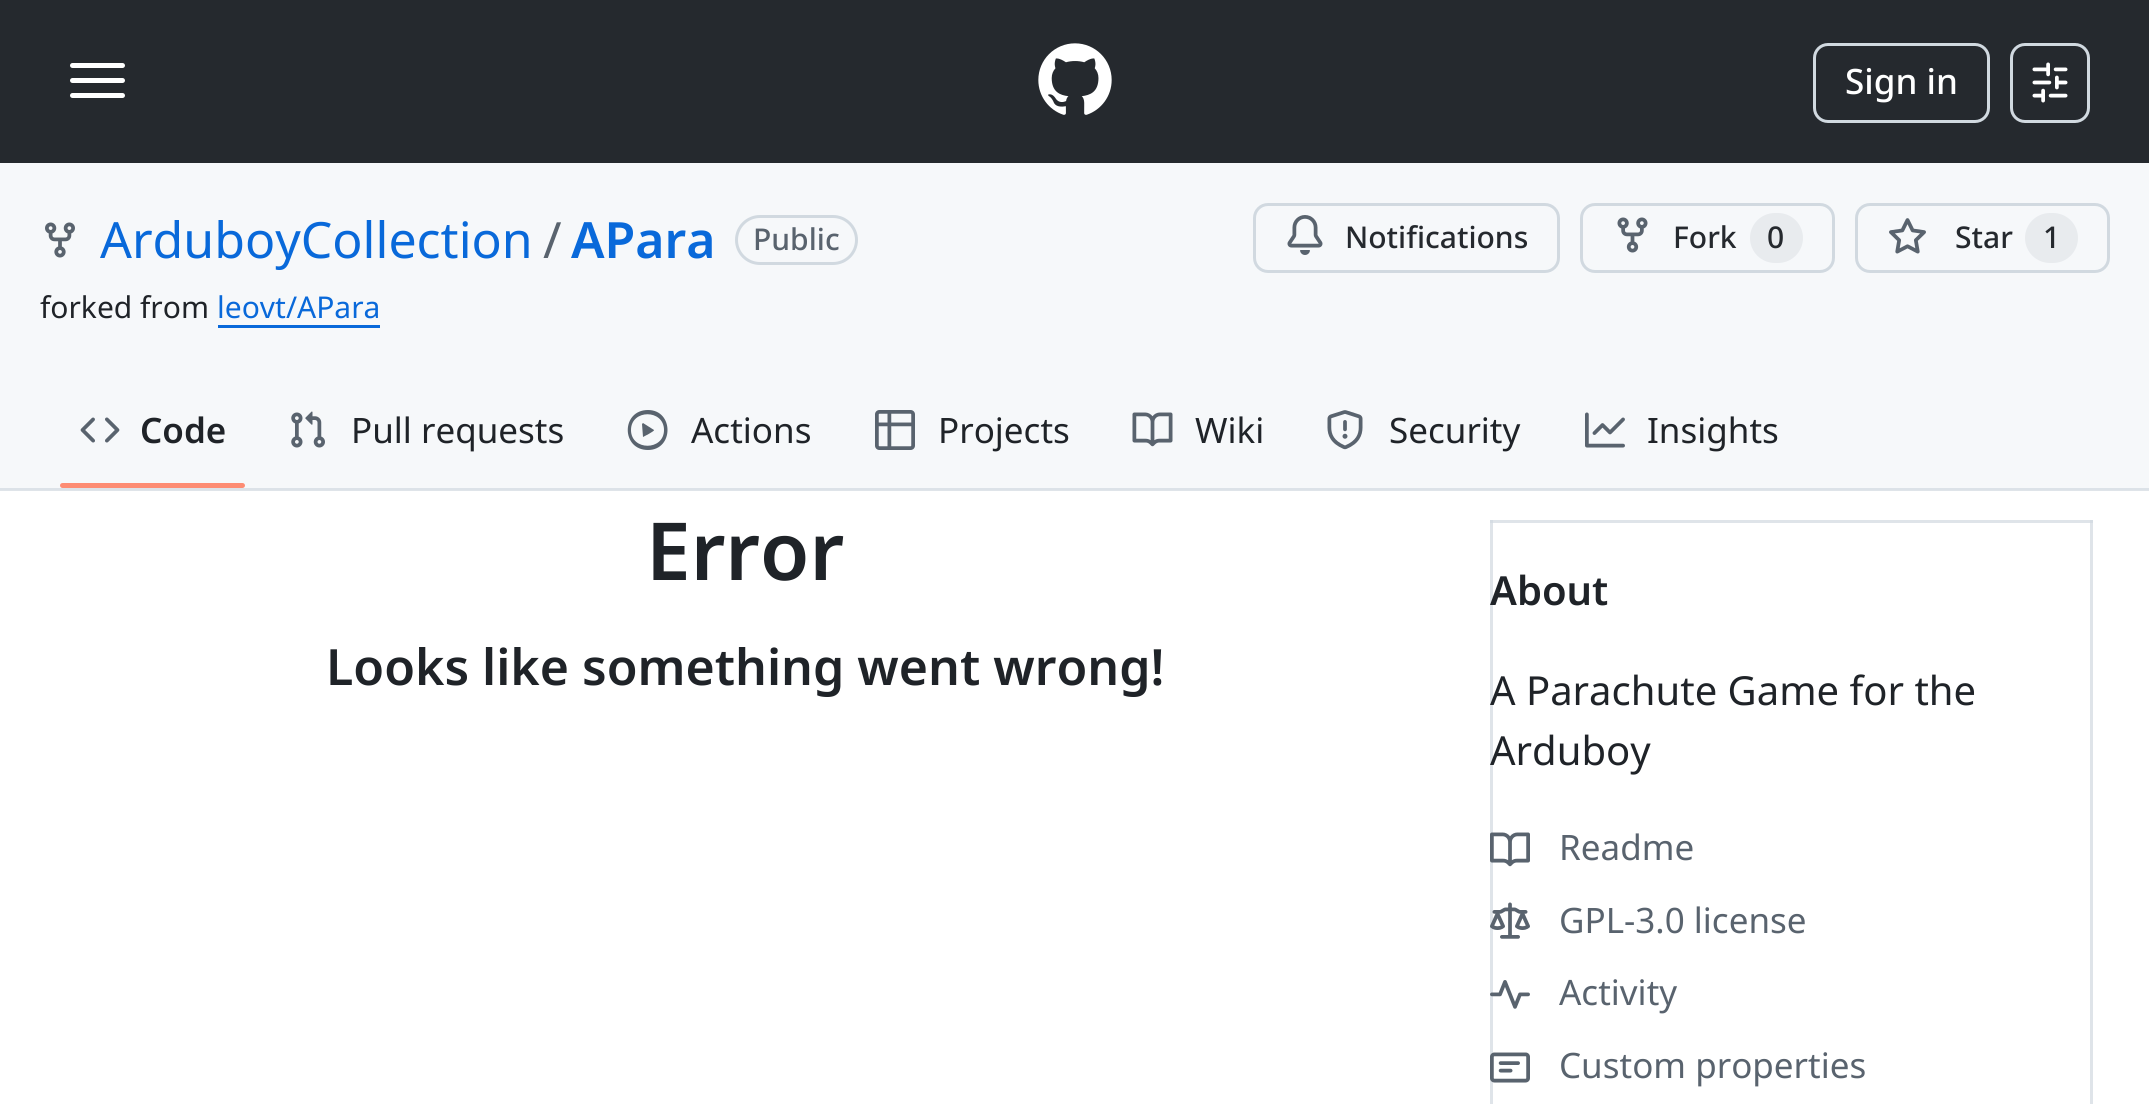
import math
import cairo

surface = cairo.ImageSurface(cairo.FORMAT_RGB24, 2149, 1104)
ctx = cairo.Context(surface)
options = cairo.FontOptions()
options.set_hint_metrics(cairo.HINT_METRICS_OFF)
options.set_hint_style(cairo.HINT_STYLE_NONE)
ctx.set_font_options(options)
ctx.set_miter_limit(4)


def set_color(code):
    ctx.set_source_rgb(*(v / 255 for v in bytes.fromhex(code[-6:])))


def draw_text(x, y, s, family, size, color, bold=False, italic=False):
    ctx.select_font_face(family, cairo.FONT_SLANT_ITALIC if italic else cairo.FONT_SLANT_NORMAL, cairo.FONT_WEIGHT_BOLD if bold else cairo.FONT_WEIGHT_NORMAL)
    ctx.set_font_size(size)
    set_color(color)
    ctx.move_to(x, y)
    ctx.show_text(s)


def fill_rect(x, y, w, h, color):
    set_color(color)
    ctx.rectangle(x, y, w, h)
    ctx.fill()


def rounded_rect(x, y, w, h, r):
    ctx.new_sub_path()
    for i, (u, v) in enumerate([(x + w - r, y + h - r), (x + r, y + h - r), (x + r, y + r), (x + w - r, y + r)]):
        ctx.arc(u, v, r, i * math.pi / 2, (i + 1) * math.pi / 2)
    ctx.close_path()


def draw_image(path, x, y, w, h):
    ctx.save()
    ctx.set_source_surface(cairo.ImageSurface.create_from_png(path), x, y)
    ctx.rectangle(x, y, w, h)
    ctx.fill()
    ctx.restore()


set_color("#ffffff")
ctx.paint()
fill_rect(0, 490, 2149, 1, "#dfe4e9")
fill_rect(1490, 520, 3, 584, "#dfe4e9")
fill_rect(2090, 520, 3, 584, "#dfe4e9")
fill_rect(0, 0, 2149, 163, "#25292e")
set_color("#ffffff")
rounded_rect(70, 63, 55, 5, 2.5)
ctx.fill()
rounded_rect(70, 78, 55, 5, 2.5)
ctx.fill()
rounded_rect(70, 93, 55, 5, 2.5)
ctx.fill()
draw_image("assets/img1.png", 1038, 43, 74, 72)
rounded_rect(1814.5, 44.5, 174, 77, 13.5)
set_color("#d1d9e0")
ctx.set_line_width(3)
ctx.stroke()
draw_text(1845, 94, "Sign in", "Noto Sans Medium", 35, "#ffffff")
rounded_rect(2011.5, 44.5, 77, 77, 13.5)
set_color("#d1d9e0")
ctx.stroke()
draw_image("assets/img2.png", 2032, 62, 36, 41)
fill_rect(0, 163, 2149, 325, "#f6f8fa")
fill_rect(0, 488, 2149, 2, "#dce2e8")
draw_image("assets/img3.png", 45, 222, 30, 36)
draw_text(100, 258, "ArduboyCollection", "Noto Sans", 50, "#0969da")
draw_text(543, 258, "/", "Noto Sans", 50, "#59636e")
draw_text(571, 258, "APara", "Noto Sans SemiBold", 50, "#0969da")
rounded_rect(736.5, 216.5, 120, 47, 23.5)
set_color("#d1d9e0")
ctx.stroke()
draw_text(753, 250, "Public", "Noto Sans Medium", 30, "#59636e")
draw_text(40, 318, "forked from", "Noto Sans", 30, "#1f2328")
draw_text(217, 318, "leovt/APara", "Noto Sans", 30, "#0969da")
fill_rect(218, 325, 162, 3, "#0969da")
rounded_rect(1254.5, 204.5, 304, 67, 13.5)
set_color("#d1d9e0")
ctx.stroke()
draw_image("assets/img4.png", 1287, 215, 36, 40)
draw_text(1345, 248, "Notifications", "Noto Sans Medium", 30, "#25292e")
rounded_rect(1581.5, 204.5, 252, 67, 13.5)
set_color("#d1d9e0")
ctx.stroke()
draw_image("assets/img5.png", 1617, 217, 31, 36)
draw_text(1673, 248, "Fork", "Noto Sans Medium", 30, "#25292e")
set_color("#e8ebee")
rounded_rect(1750, 213, 53, 50, 25)
ctx.fill()
draw_text(1767, 248, "0", "Noto Sans Medium", 30, "#25292e")
rounded_rect(1856.5, 204.5, 252, 67, 13.5)
set_color("#d1d9e0")
ctx.stroke()
draw_image("assets/img6.png", 1889, 218, 37, 36)
draw_text(1955, 248, "Star", "Noto Sans Medium", 30, "#25292e")
set_color("#e8ebee")
rounded_rect(2025, 213, 53, 50, 25)
ctx.fill()
draw_text(2043, 248, "1", "Noto Sans Medium", 30, "#25292e")
draw_image("assets/img7.png", 80, 417, 40, 26)
draw_text(140, 443, "Code", "Noto Sans SemiBold", 35, "#1f2328")
set_color("#fd8c73")
rounded_rect(60, 483, 185, 5, 2.5)
ctx.fill()
draw_image("assets/img8.png", 291, 411, 34, 37)
draw_text(351, 443, "Pull requests", "Noto Sans", 35, "#1f2328")
set_color("#59636e")
ctx.new_path()
ctx.move_to(648, 410)
ctx.curve_to(674, 410, 674, 450, 648, 450)
ctx.curve_to(621, 450, 621, 410, 648, 410)
ctx.close_path()
ctx.move_to(631, 430)
ctx.curve_to(631, 451, 664, 451, 664, 430)
ctx.curve_to(664, 409, 631, 409, 631, 430)
ctx.close_path()
ctx.move_to(643, 423)
ctx.line_to(654, 430)
ctx.curve_to(655, 431, 643, 437, 643, 437)
ctx.line_to(642, 424)
ctx.close_path()
ctx.fill()
draw_text(691, 443, "Actions", "Noto Sans", 35, "#1f2328")
draw_image("assets/img9.png", 875, 410, 40, 40)
draw_text(938, 443, "Projects", "Noto Sans", 35, "#1f2328")
draw_image("assets/img10.png", 1132, 412, 41, 35)
draw_text(1195, 443, "Wiki", "Noto Sans", 35, "#1f2328")
draw_image("assets/img11.png", 1327, 410, 36, 40)
draw_text(1389, 443, "Security", "Noto Sans", 35, "#1f2328")
draw_image("assets/img12.png", 1585, 412, 40, 36)
draw_text(1647, 443, "Insights", "Noto Sans", 35, "#1f2328")
draw_text(646, 580, "Error", "Noto Sans SemiBold", 80, "#1f2328")
draw_text(326, 685, "Looks like something went wrong!", "Noto Sans SemiBold", 50, "#1f2328")
fill_rect(1490, 520, 603, 3, "#dfe4e9")
fill_rect(1490, 520, 3, 3, "#d5dce3")
fill_rect(2090, 520, 3, 3, "#d5dce3")
draw_text(1490, 605, "About", "Noto Sans SemiBold", 40, "#1f2328")
draw_text(1490, 705, "A Parachute Game for the", "Noto Sans", 40, "#1f2328")
draw_text(1490, 765, "Arduboy", "Noto Sans", 40, "#1f2328")
draw_image("assets/img13.png", 1490, 832, 40, 35)
draw_text(1559, 860, "Readme", "Noto Sans", 35, "#59636e")
draw_image("assets/img14.png", 1490, 902, 40, 37)
draw_text(1559, 933, "GPL-3.0 license", "Noto Sans", 35, "#59636e")
draw_image("assets/img15.png", 1490, 980, 40, 29)
draw_text(1559, 1005, "Activity", "Noto Sans", 35, "#59636e")
draw_image("assets/img16.png", 1490, 1052, 40, 31)
draw_text(1559, 1078, "Custom properties", "Noto Sans", 35, "#59636e")
surface.write_to_png("output.png")
